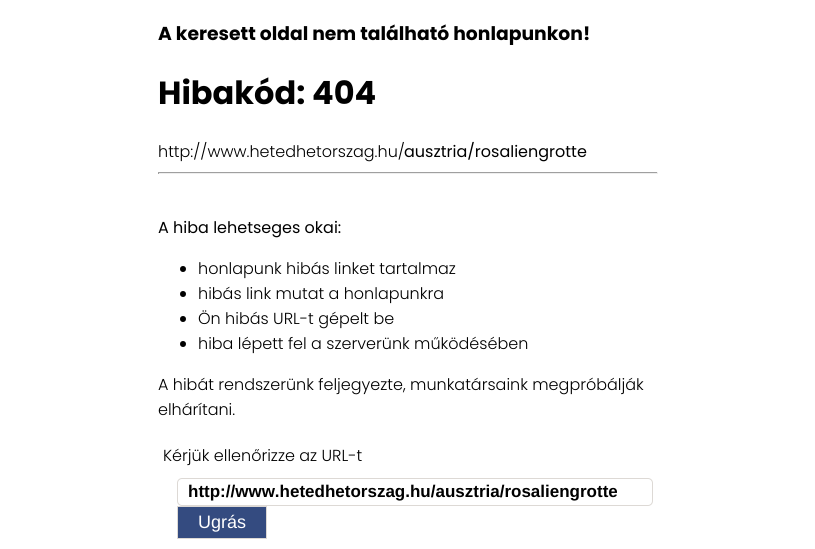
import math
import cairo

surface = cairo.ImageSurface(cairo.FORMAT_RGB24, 815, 549)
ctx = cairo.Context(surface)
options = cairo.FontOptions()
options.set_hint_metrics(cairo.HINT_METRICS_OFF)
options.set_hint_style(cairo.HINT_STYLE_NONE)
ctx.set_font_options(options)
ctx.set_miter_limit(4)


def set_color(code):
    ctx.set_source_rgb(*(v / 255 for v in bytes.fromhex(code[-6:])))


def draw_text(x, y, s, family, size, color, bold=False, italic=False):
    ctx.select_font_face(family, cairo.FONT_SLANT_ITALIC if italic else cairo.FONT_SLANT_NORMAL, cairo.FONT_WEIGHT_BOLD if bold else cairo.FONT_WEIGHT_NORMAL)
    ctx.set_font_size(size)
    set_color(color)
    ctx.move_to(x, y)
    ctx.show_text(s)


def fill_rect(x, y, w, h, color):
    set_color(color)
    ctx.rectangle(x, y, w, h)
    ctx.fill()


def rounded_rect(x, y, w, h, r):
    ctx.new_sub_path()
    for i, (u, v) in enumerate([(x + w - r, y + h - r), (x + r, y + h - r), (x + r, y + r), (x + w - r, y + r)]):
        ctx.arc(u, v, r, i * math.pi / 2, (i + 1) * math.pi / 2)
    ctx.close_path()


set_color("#ffffff")
ctx.paint()
draw_text(158, 40, "A keresett oldal nem található honlapunkon!", "Poppins", 18.75, "#000000", bold=True)
draw_text(158, 104, "Hibakód: 404", "Poppins", 32, "#000000", bold=True)
draw_text(158, 157, "http://www.hetedhetorszag.hu/", "Poppins Light", 16, "#000000")
draw_text(404, 157, "ausztria/rosaliengrotte", "Poppins", 16, "#000000")
fill_rect(158, 172, 500, 1, "#9f9f9f")
fill_rect(657, 172, 1, 2, "#eeeeee")
fill_rect(158, 173, 500, 1, "#eeeeee")
fill_rect(158, 172, 1, 2, "#9f9f9f")
draw_text(158, 233, "A hiba lehetseges okai:", "Poppins", 16, "#000000")
ctx.new_path()
ctx.arc(183, 269, 3, 0, 2 * math.pi)
ctx.fill()
draw_text(198, 274, "honlapunk hibás linket tartalmaz", "Poppins Light", 16, "#000000")
ctx.new_path()
ctx.arc(183, 294, 3, 0, 2 * math.pi)
ctx.fill()
draw_text(198, 299, "hibás link mutat a honlapunkra", "Poppins Light", 16, "#000000")
ctx.new_path()
ctx.arc(183, 319, 3, 0, 2 * math.pi)
ctx.fill()
draw_text(198, 324, "Ön hibás URL-t gépelt be", "Poppins Light", 16, "#000000")
ctx.new_path()
ctx.arc(183, 344, 3, 0, 2 * math.pi)
ctx.fill()
draw_text(198, 349, "hiba lépett fel a szerverünk működésében", "Poppins Light", 16, "#000000")
draw_text(158, 390, "A hibát rendszerünk feljegyezte, munkatársaink megpróbálják", "Poppins Light", 16, "#000000")
draw_text(158, 415, "elhárítani.", "Poppins Light", 16, "#000000")
draw_text(163, 461, "Kérjük ellenőrizze az URL-t", "Poppins Light", 16, "#000000")
rounded_rect(177.5, 478.5, 475, 27, 4.5)
set_color("#ddd9d5")
ctx.set_line_width(1)
ctx.stroke()
draw_text(188, 497, "http://www.hetedhetorszag.hu/ausztria/rosaliengrotte", "Liberation Sans", 17, "#000000", bold=True)
set_color("#344b80")
ctx.rectangle(177.5, 506.5, 89, 32)
ctx.fill_preserve()
set_color("#ddd9d5")
ctx.stroke()
draw_text(198, 528, "Ugrás", "Liberation Sans", 18, "#ffffff")
surface.write_to_png("output.png")
